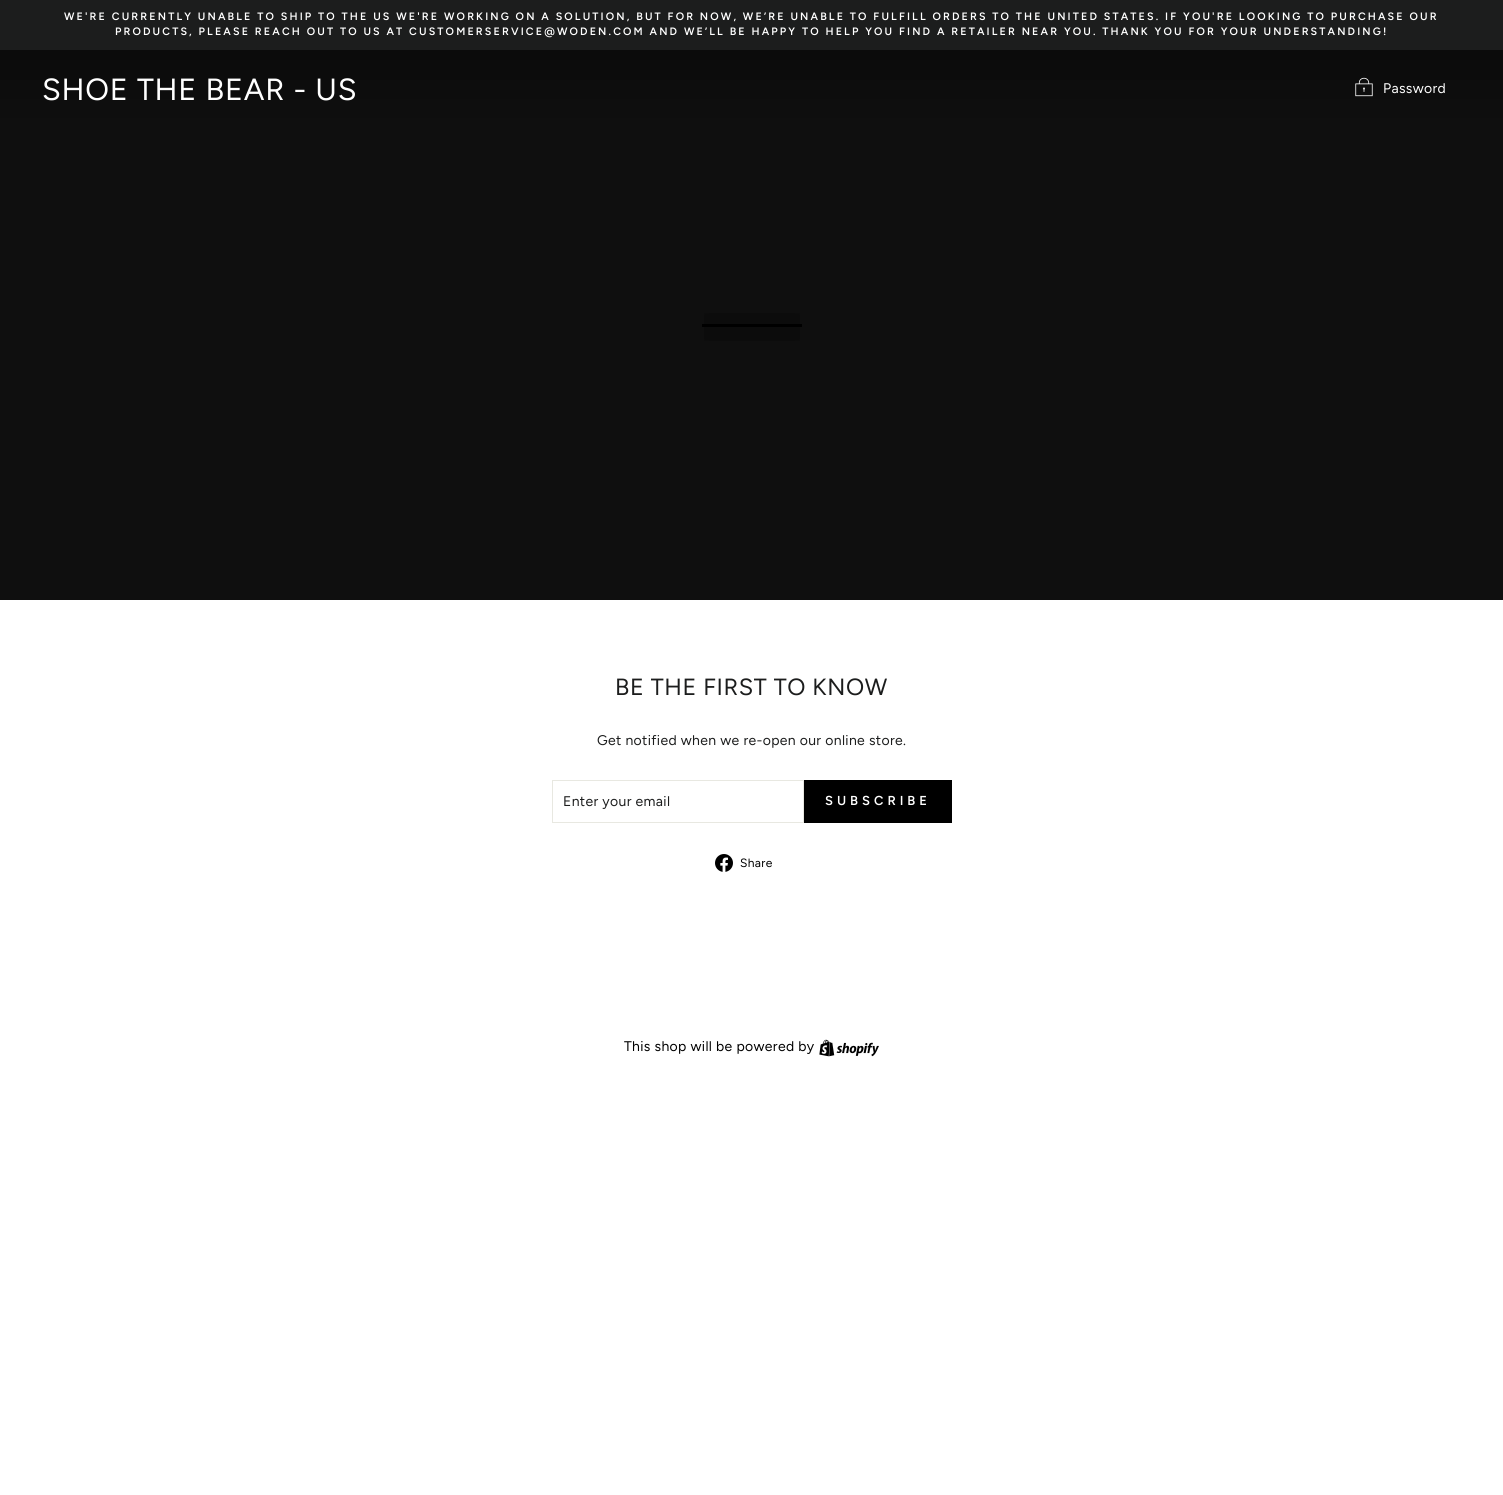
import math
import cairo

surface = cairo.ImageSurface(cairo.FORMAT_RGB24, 1503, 1495)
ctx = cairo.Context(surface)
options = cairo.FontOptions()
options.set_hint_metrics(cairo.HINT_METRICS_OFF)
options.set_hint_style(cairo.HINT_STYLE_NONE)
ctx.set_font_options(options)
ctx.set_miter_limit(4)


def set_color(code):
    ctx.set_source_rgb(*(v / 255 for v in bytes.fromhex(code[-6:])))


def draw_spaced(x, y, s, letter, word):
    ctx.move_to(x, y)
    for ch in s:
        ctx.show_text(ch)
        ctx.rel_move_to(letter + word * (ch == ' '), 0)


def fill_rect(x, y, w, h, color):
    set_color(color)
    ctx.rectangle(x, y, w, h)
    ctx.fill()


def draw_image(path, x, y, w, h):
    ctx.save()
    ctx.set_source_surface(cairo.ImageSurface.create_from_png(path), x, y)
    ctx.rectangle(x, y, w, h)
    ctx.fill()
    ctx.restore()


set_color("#ffffff")
ctx.paint()
fill_rect(0, 0, 1503, 50, "#1c1d1d")
ctx.select_font_face("Figtree SemiBold")
ctx.set_font_size(10.71)
set_color("#ffffff")
draw_spaced(64, 20, "WE'RE CURRENTLY UNABLE TO SHIP TO THE US WE'RE WORKING ON A SOLUTION, BUT FOR NOW, WE’RE UNABLE TO FULFILL ORDERS TO THE UNITED STATES. IF YOU'RE LOOKING TO PURCHASE OUR", 2.14, 0)
draw_spaced(115, 35, "PRODUCTS, PLEASE REACH OUT TO US AT CUSTOMERSERVICE@WODEN.COM AND WE’LL BE HAPPY TO HELP YOU FIND A RETAILER NEAR YOU. THANK YOU FOR YOUR UNDERSTANDING!", 2.14, 0)
gradient = cairo.LinearGradient(752, 50, 752, 129)
gradient.add_color_stop_rgba(0, 0.043, 0.043, 0.043, 1)
gradient.add_color_stop_rgba(1, 0.059, 0.059, 0.059, 1)
ctx.set_source(gradient)
ctx.rectangle(0, 50, 1503, 79)
ctx.fill()
ctx.select_font_face("Figtree")
ctx.set_font_size(30.6)
set_color("#ffffff")
draw_spaced(42, 100, "SHOE THE BEAR - US", 0.75, 0)
draw_image("assets/img1.png", 1355, 77, 18, 20)
ctx.set_font_size(14)
draw_spaced(1383, 93, "Password", 0.35, 0)
fill_rect(0, 129, 1503, 471, "#0f0f0f")
fill_rect(702, 324, 100, 3, "#000000")
gradient = cairo.RadialGradient(0, 0, 0, 0, 0, 1)
gradient.set_matrix(cairo.Matrix(1 / 623, 0, 0, 1 / 188, -1 * 752 / 623, -1 * 327 / 188))
gradient.add_color_stop_rgba(0, 0, 0, 0, 0.2)
gradient.add_color_stop_rgba(0.6, 0, 0, 0, 0)
ctx.set_source(gradient)
ctx.rectangle(704, 313, 96, 28)
ctx.fill()
ctx.set_font_size(23.4)
set_color("#1c1d1d")
draw_spaced(615, 695, "BE THE FIRST TO KNOW", 0.6, 0)
ctx.set_font_size(14)
draw_spaced(597, 745, "Get notified when we re-open our online store.", 0.35, 0)
ctx.rectangle(552.5, 780.5, 251, 42)
set_color("#e8e8e1")
ctx.set_line_width(1)
ctx.stroke()
set_color("#1c1d1d")
draw_spaced(563, 806, "Enter your email", 0.35, 0)
fill_rect(804, 780, 148, 43, "#000000")
ctx.select_font_face("Figtree SemiBold")
ctx.set_font_size(13)
set_color("#ffffff")
draw_spaced(825, 805, "SUBSCRIBE", 4, 0)
draw_image("assets/img2.png", 715, 854, 18, 18)
ctx.select_font_face("Figtree")
ctx.set_font_size(12)
set_color("#000000")
draw_spaced(740, 867, "Share", 0.35, 0)
ctx.set_font_size(14)
draw_spaced(624, 1051, "This shop will be powered by", 0.35, 0)
draw_image("assets/img3.png", 819, 1039, 60, 18)
surface.write_to_png("output.png")
